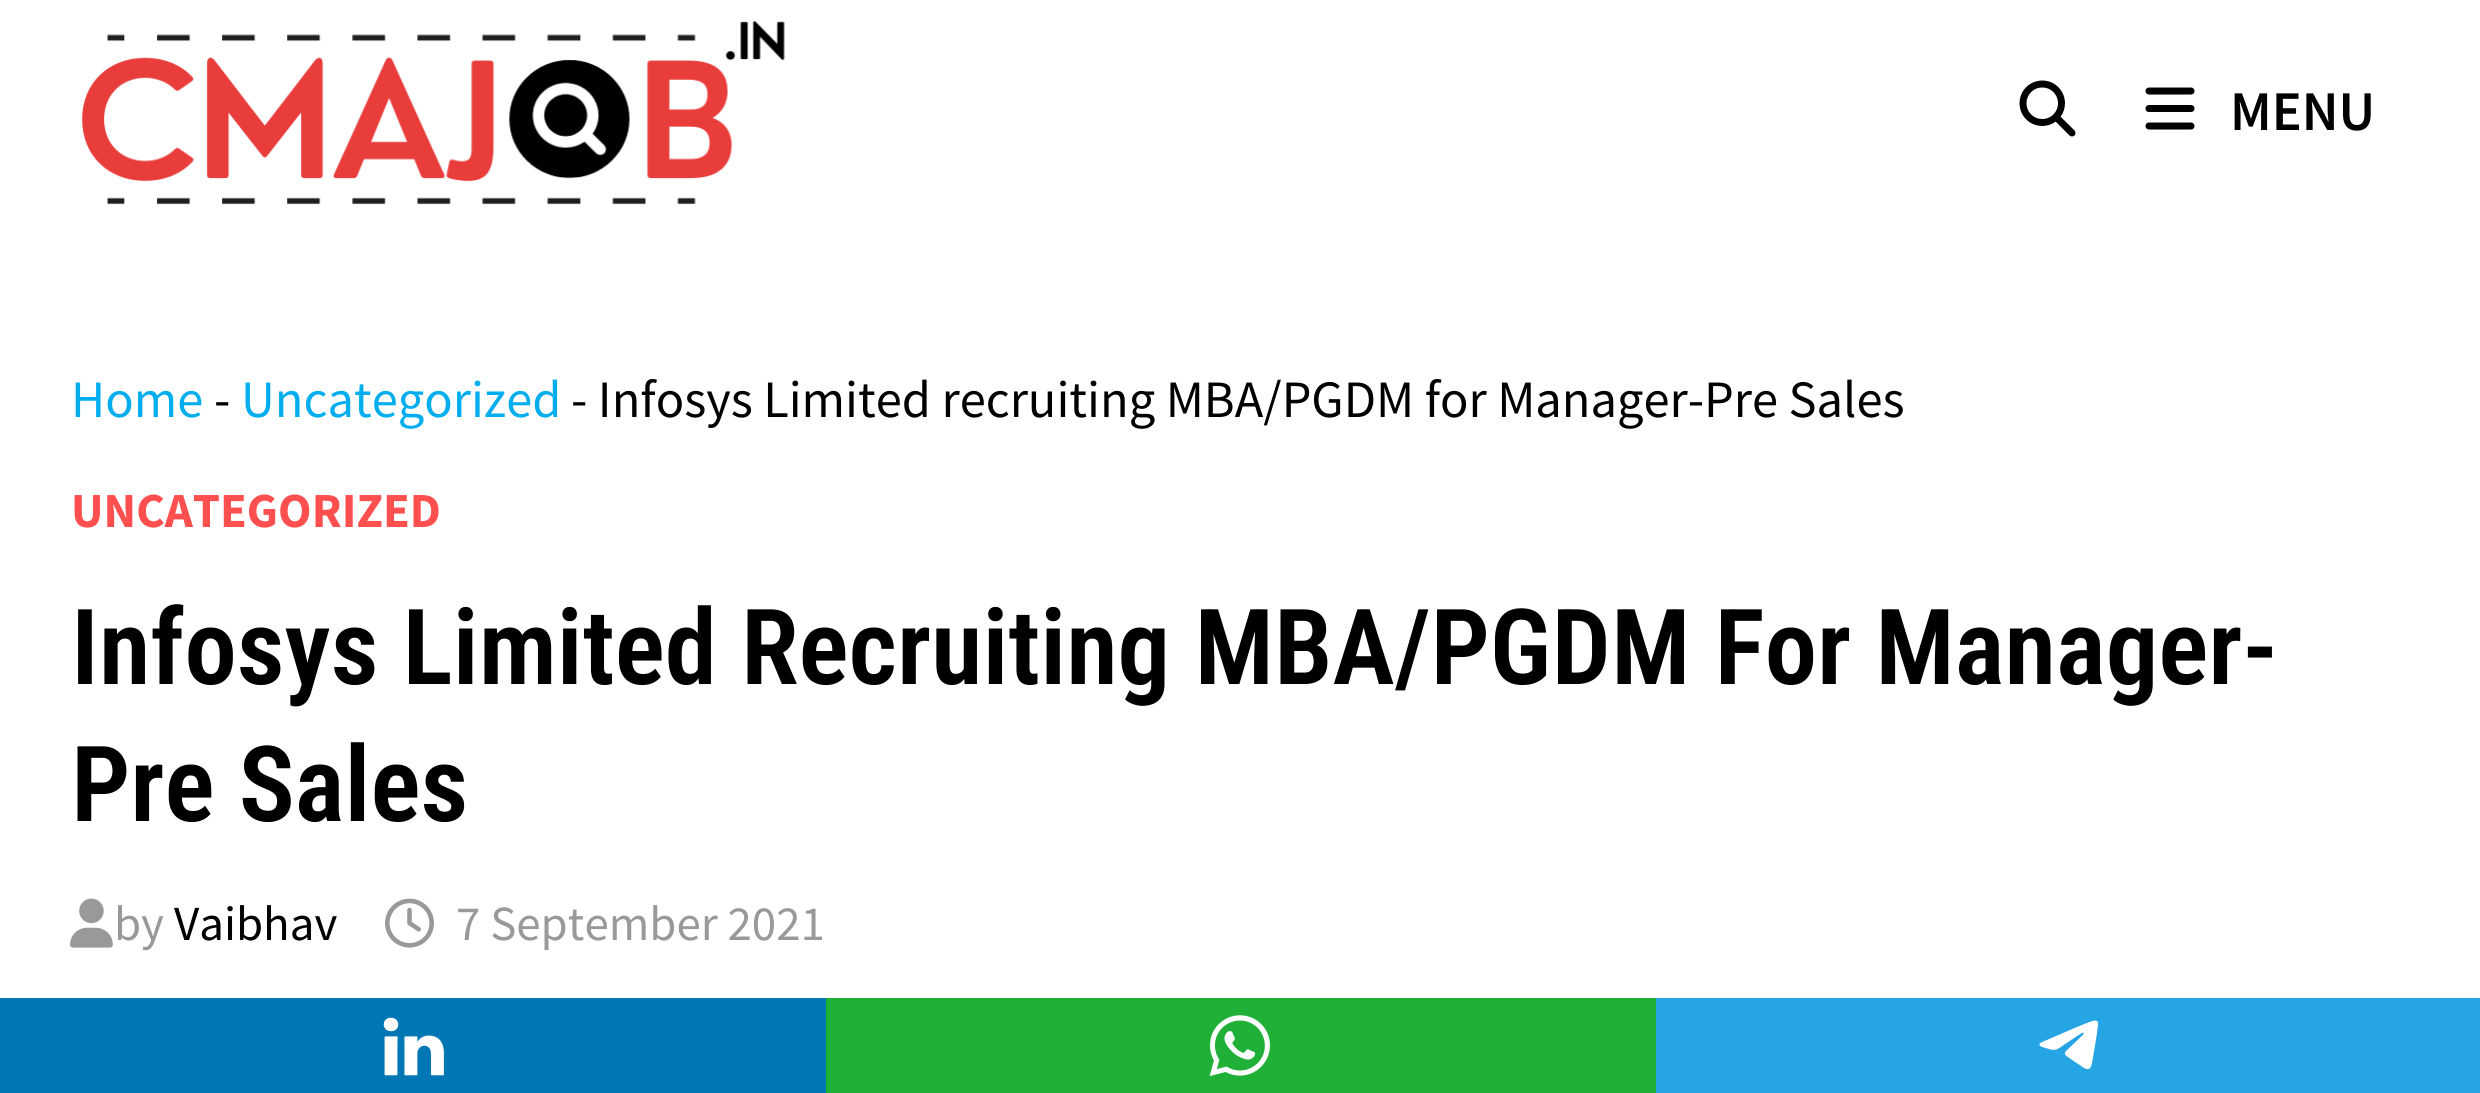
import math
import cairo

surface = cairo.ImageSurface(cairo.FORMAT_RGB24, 2480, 1093)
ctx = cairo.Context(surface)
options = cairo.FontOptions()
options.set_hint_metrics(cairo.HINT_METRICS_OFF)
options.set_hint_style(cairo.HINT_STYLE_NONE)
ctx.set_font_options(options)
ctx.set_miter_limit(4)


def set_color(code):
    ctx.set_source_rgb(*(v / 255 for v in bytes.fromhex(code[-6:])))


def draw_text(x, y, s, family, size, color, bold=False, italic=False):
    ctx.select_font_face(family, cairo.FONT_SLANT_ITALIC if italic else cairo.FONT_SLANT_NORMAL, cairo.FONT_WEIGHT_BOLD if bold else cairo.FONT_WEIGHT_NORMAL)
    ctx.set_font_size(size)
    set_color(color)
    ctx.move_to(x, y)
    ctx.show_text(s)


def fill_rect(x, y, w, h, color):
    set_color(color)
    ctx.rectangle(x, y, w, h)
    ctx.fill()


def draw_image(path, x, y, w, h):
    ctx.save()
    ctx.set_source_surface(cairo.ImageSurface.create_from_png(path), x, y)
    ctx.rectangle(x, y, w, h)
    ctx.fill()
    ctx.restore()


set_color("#ffffff")
ctx.paint()
draw_image("assets/img1.png", 82, 20, 703, 185)
draw_image("assets/img2.png", 2019, 80, 57, 57)
draw_image("assets/img3.png", 2145, 87, 50, 43)
draw_text(2230, 130, "MENU", "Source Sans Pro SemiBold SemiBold", 56, "#000000")
draw_text(71, 417, "Home", "Source Sans Pro", 52.5, "#00aeef")
draw_text(214, 417, "-", "Source Sans Pro", 52.5, "#000000")
draw_text(241, 417, "Uncategorized", "Source Sans Pro", 52.5, "#00aeef")
draw_text(571, 417, "- Infosys Limited recruiting MBA/PGDM for Manager-Pre Sales", "Source Sans Pro", 52.5, "#000000")
draw_text(71, 527, "UNCATEGORIZED", "Source Sans Pro", 49, "#ff4f4f", bold=True)
draw_text(71, 684, "Infosys Limited Recruiting MBA/PGDM For Manager-", "Roboto Condensed SemiBold", 105, "#000000")
draw_text(71, 821, "Pre Sales", "Roboto Condensed SemiBold", 105, "#000000")
draw_image("assets/img4.png", 70, 898, 43, 50)
draw_text(114, 940, "by", "Source Sans Pro", 49, "#999999")
draw_text(174, 940, "Vaibhav", "Source Sans Pro", 49, "#000000")
draw_image("assets/img5.png", 385, 898, 49, 50)
draw_text(456, 940, "7 September 2021", "Source Sans Pro", 49, "#999999")
fill_rect(0, 998, 826, 95, "#0077b5")
draw_image("assets/img6.png", 383, 1017, 61, 59)
fill_rect(826, 998, 830, 95, "#20b038")
draw_image("assets/img7.png", 1209, 1015, 61, 61)
fill_rect(1656, 998, 824, 95, "#26a5e4")
draw_image("assets/img8.png", 2039, 1020, 60, 50)
surface.write_to_png("output.png")
